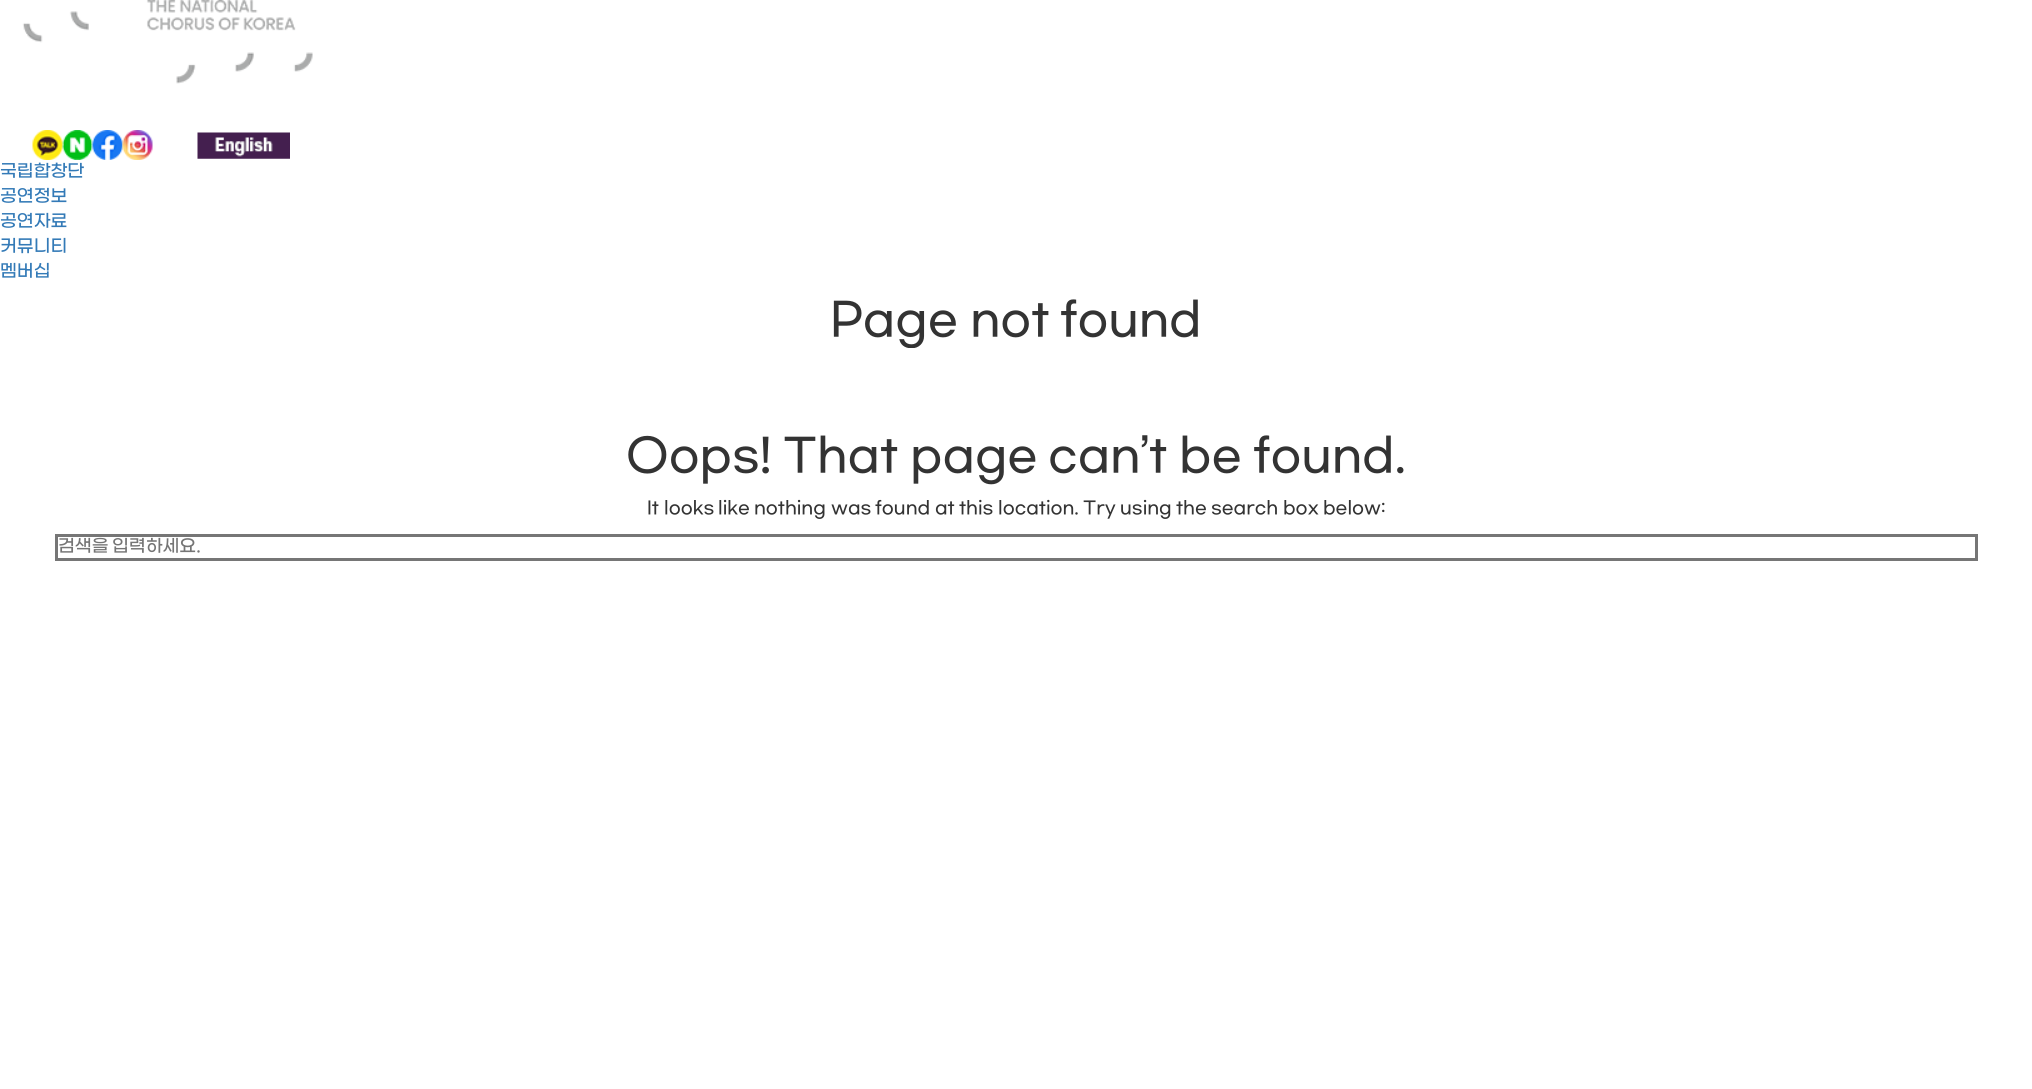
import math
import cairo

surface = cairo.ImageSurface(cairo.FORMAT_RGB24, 2032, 1089)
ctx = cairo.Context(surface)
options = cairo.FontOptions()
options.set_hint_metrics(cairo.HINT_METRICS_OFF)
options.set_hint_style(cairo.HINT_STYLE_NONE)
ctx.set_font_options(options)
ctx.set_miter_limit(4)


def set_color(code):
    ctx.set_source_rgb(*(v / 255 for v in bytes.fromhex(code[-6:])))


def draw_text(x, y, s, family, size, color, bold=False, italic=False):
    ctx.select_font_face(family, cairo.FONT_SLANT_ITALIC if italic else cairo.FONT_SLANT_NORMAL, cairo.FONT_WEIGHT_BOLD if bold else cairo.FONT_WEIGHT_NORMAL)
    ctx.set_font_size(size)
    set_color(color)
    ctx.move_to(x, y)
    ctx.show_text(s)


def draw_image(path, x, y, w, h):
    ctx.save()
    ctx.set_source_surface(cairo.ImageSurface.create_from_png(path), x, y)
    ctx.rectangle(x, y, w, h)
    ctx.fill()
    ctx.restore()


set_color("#ffffff")
ctx.paint()
draw_image("assets/img1.png", 22, 0, 291, 84)
draw_image("assets/img2.png", 32, 130, 31, 30)
draw_image("assets/img3.png", 62, 130, 31, 30)
draw_image("assets/img4.png", 92, 130, 31, 30)
draw_image("assets/img5.png", 122, 130, 31, 30)
draw_image("assets/img6.png", 197, 132, 93, 27)
draw_text(0, 176, "국립합창단", "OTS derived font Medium", 17.5, "#337ab7")
draw_text(0, 201, "공연정보", "OTS derived font Medium", 17.5, "#337ab7")
draw_text(0, 226, "공연자료", "OTS derived font Medium", 17.5, "#337ab7")
draw_text(0, 251, "커뮤니티", "OTS derived font Medium", 17.5, "#337ab7")
draw_text(0, 276, "멤버십", "OTS derived font Medium", 17.5, "#337ab7")
ctx.save()
ctx.rectangle(830, 298, 373, 50)
ctx.clip()
draw_text(830, 333, "Page", "OTS derived font Medium", 45, "#333333")
ctx.restore()
draw_text(970, 333, "not", "OTS derived font Medium", 45, "#333333")
draw_text(1060, 333, "found", "OTS derived font Medium", 45, "#333333")
draw_text(626, 469, "Oops!", "OTS derived font Medium", 45, "#333333")
draw_text(783, 469, "That", "OTS derived font Medium", 45, "#333333")
draw_text(910, 469, "page", "OTS derived font Medium", 45, "#333333")
draw_text(1048, 469, "can’t", "OTS derived font Medium", 45, "#333333")
draw_text(1179, 469, "be", "OTS derived font Medium", 45, "#333333")
draw_text(1253, 469, "found.", "OTS derived font Medium", 45, "#333333")
draw_text(647, 513, "It", "OTS derived font Medium", 17.5, "#333333")
draw_text(664, 513, "looks", "OTS derived font Medium", 17.5, "#333333")
draw_text(718, 513, "like", "OTS derived font Medium", 17.5, "#333333")
draw_text(754, 513, "nothing", "OTS derived font Medium", 17.5, "#333333")
draw_text(831, 513, "was", "OTS derived font Medium", 17.5, "#333333")
draw_text(875, 513, "found", "OTS derived font Medium", 17.5, "#333333")
draw_text(935, 513, "at", "OTS derived font Medium", 17.5, "#333333")
draw_text(959, 513, "this", "OTS derived font Medium", 17.5, "#333333")
draw_text(998, 513, "location.", "OTS derived font Medium", 17.5, "#333333")
draw_text(1083, 513, "Try", "OTS derived font Medium", 17.5, "#333333")
draw_text(1120, 513, "using", "OTS derived font Medium", 17.5, "#333333")
draw_text(1176, 513, "the", "OTS derived font Medium", 17.5, "#333333")
draw_text(1211, 513, "search", "OTS derived font Medium", 17.5, "#333333")
draw_text(1283, 513, "box", "OTS derived font Medium", 17.5, "#333333")
draw_text(1323, 513, "below:", "OTS derived font Medium", 17.5, "#333333")
ctx.rectangle(56.5, 535.5, 1920, 24)
set_color("#767676")
ctx.set_line_width(3)
ctx.stroke()
draw_text(58, 551, "검색을", "OTS derived font Medium", 17.5, "#757575")
draw_text(112, 551, "입력하세요.", "OTS derived font Medium", 17.5, "#757575")
surface.write_to_png("output.png")
